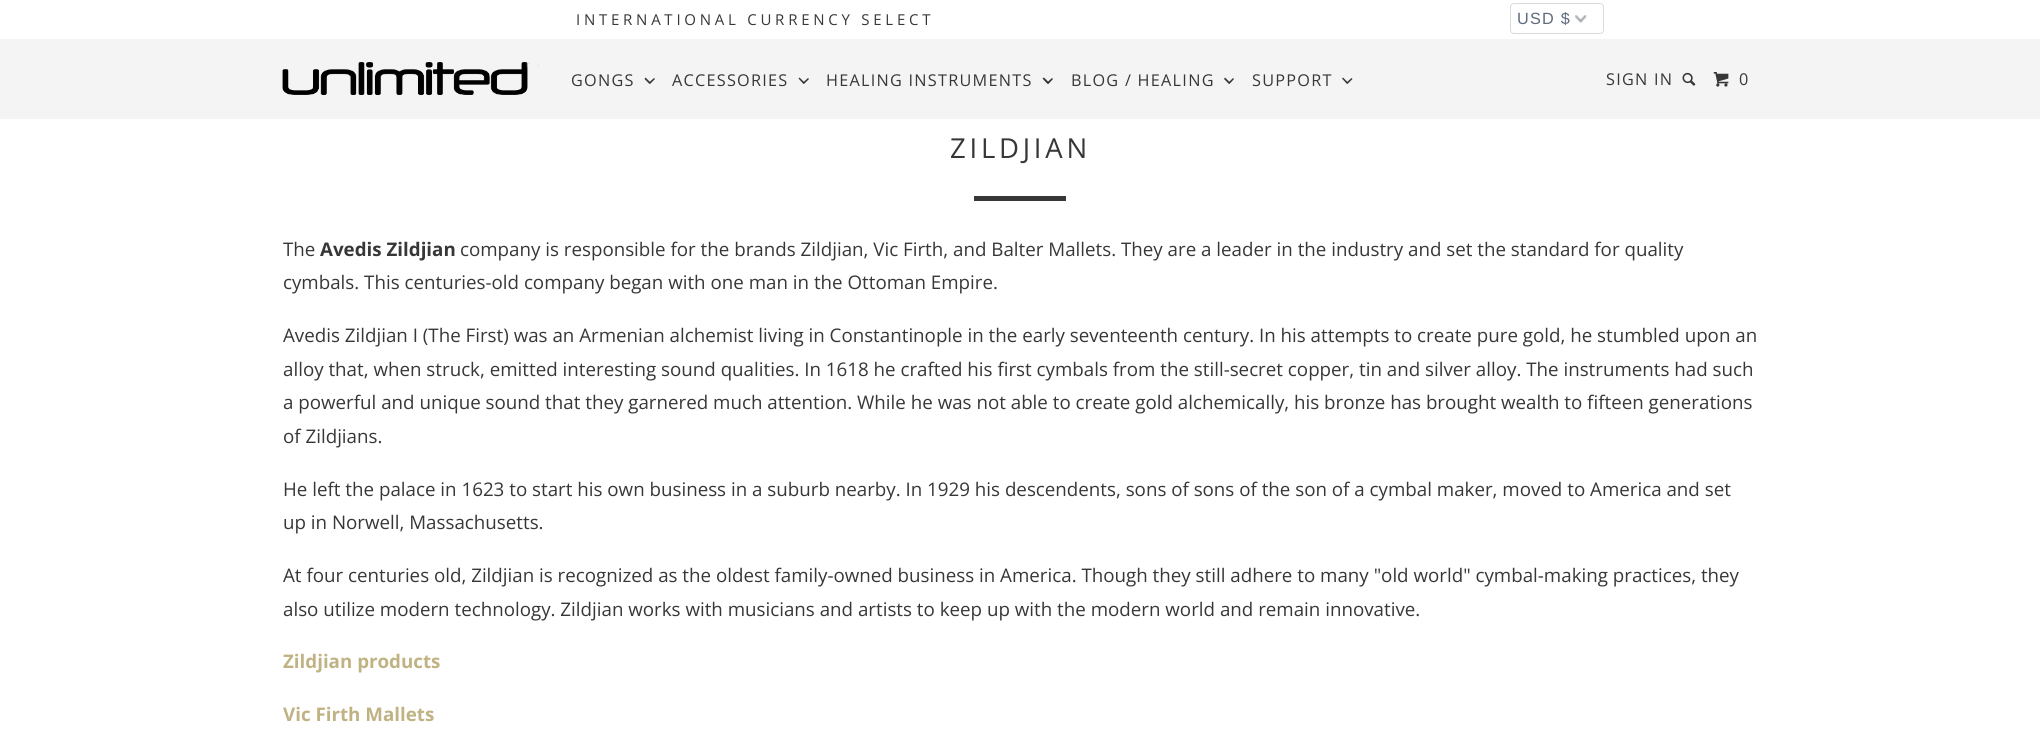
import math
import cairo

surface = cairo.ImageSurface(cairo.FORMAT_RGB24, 2040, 752)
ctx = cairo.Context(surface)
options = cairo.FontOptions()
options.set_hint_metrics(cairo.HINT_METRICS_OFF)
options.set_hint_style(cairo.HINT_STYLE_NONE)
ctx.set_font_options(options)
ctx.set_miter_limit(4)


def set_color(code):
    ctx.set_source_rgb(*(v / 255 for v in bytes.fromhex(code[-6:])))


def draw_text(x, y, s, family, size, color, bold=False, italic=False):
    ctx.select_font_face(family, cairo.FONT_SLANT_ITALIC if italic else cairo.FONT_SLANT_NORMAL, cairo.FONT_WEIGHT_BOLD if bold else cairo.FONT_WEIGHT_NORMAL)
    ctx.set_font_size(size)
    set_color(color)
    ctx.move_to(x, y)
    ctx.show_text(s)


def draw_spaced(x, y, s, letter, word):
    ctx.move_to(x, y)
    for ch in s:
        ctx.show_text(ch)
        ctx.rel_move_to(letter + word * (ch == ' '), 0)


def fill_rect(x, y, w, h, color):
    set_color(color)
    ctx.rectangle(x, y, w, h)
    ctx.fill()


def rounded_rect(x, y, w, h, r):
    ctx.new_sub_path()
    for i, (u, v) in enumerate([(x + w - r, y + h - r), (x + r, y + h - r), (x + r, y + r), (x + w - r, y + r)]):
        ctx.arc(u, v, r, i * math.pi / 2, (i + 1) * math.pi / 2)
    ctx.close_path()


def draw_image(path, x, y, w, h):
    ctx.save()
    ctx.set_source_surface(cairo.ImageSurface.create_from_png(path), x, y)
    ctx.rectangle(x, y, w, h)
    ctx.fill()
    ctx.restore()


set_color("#ffffff")
ctx.paint()
ctx.select_font_face("Open Sans")
ctx.set_font_size(15)
set_color("#373737")
draw_spaced(576, 25, "INTERNATIONAL CURRENCY SELECT", 3.75, 0)
draw_image("assets/img1.png", 1574, 15, 13, 8)
rounded_rect(1510.5, 3.5, 93, 30, 3.5)
set_color("#d9dbdc")
ctx.set_line_width(1)
ctx.stroke()
ctx.select_font_face("Liberation Sans")
ctx.set_font_size(16.25)
set_color("#5f6a7d")
draw_spaced(1517, 24, "USD $", 1.25, 0)
fill_rect(0, 39, 2040, 80, "#f4f4f4")
draw_image("assets/img2.png", 282, 62, 257, 33)
ctx.select_font_face("Open Sans")
set_color("#373737")
draw_spaced(571, 86, "GONGS", 1.25, 0)
ctx.new_path()
ctx.move_to(654, 78)
ctx.line_to(655, 79)
ctx.line_to(650, 84)
ctx.line_to(649, 82.5)
ctx.close_path()
ctx.fill()
ctx.new_path()
ctx.move_to(645.5, 77.5)
ctx.line_to(650.5, 82.5)
ctx.line_to(649.5, 84)
ctx.line_to(644.5, 79)
ctx.close_path()
ctx.fill()
draw_spaced(672, 86, "ACCESSORIES", 1.25, 0)
ctx.new_path()
ctx.move_to(808, 78)
ctx.line_to(809, 79)
ctx.line_to(804, 84)
ctx.line_to(803, 82.5)
ctx.close_path()
ctx.fill()
ctx.new_path()
ctx.move_to(799.5, 77.5)
ctx.line_to(804.5, 82.5)
ctx.line_to(803.5, 84)
ctx.line_to(798.5, 78.5)
ctx.close_path()
ctx.fill()
draw_spaced(826, 86, "HEALING INSTRUMENTS", 1.25, 0)
ctx.new_path()
ctx.move_to(1052, 78)
ctx.line_to(1053, 79)
ctx.line_to(1048.5, 84)
ctx.line_to(1047, 82.5)
ctx.close_path()
ctx.fill()
ctx.new_path()
ctx.move_to(1044, 77.5)
ctx.line_to(1049, 82.5)
ctx.line_to(1047.5, 84)
ctx.line_to(1042.5, 78.5)
ctx.close_path()
ctx.fill()
draw_spaced(1071, 86, "BLOG / HEALING", 1.25, 0)
ctx.new_path()
ctx.move_to(1233, 78)
ctx.line_to(1234, 79)
ctx.line_to(1229.5, 84)
ctx.line_to(1228.5, 82.5)
ctx.close_path()
ctx.fill()
ctx.new_path()
ctx.move_to(1225, 77.5)
ctx.line_to(1230, 82.5)
ctx.line_to(1229, 84)
ctx.line_to(1224, 79)
ctx.close_path()
ctx.fill()
draw_spaced(1252, 86, "SUPPORT", 1.25, 0)
ctx.new_path()
ctx.move_to(1351.5, 78)
ctx.line_to(1352.5, 79)
ctx.line_to(1347.5, 84)
ctx.line_to(1346.5, 82.5)
ctx.close_path()
ctx.fill()
ctx.new_path()
ctx.move_to(1343, 77.5)
ctx.line_to(1348, 82.5)
ctx.line_to(1347, 84)
ctx.line_to(1342, 78.5)
ctx.close_path()
ctx.fill()
draw_spaced(1606, 85, "SIGN IN", 1.25, 0)
draw_image("assets/img3.png", 1682, 72, 14, 14)
draw_image("assets/img4.png", 1713, 72, 16, 15)
draw_spaced(1739, 85, "0", 1.25, 0)
ctx.set_font_size(27.5)
draw_spaced(950, 158, "ZILDJIAN", 3.75, 0)
fill_rect(974, 196, 92, 5, "#373737")
draw_text(283, 256, "The", "Open Sans", 18.75, "#373737")
draw_text(320, 256, "Avedis Zildjian", "Open Sans", 18.75, "#373737", bold=True)
draw_text(460, 256, "company is responsible for the brands Zildjian, Vic Firth, and Balter Mallets. They are a leader in the industry and set the standard for quality", "Open Sans", 18.75, "#373737")
draw_text(283, 289, "cymbals. This centuries-old company began with one man in the Ottoman Empire.", "Open Sans", 18.75, "#373737")
draw_text(283, 342, "Avedis Zildjian I (The First) was an Armenian alchemist living in Constantinople in the early seventeenth century. In his attempts to create pure gold, he stumbled upon an", "Open Sans", 18.75, "#373737")
draw_text(283, 376, "alloy that, when struck, emitted interesting sound qualities. In 1618 he crafted his first cymbals from the still-secret copper, tin and silver alloy. The instruments had such", "Open Sans", 18.75, "#373737")
draw_text(283, 409, "a powerful and unique sound that they garnered much attention. While he was not able to create gold alchemically, his bronze has brought wealth to fifteen generations", "Open Sans", 18.75, "#373737")
draw_text(283, 443, "of Zildjians.", "Open Sans", 18.75, "#373737")
draw_text(283, 496, "He left the palace in 1623 to start his own business in a suburb nearby. In 1929 his descendents, sons of sons of the son of a cymbal maker, moved to America and set", "Open Sans", 18.75, "#373737")
draw_text(283, 529, "up in Norwell, Massachusetts.", "Open Sans", 18.75, "#373737")
draw_text(283, 582, "At four centuries old, Zildjian is recognized as the oldest family-owned business in America. Though they still adhere to many \"old world\" cymbal-making practices, they", "Open Sans", 18.75, "#373737")
draw_text(283, 616, "also utilize modern technology. Zildjian works with musicians and artists to keep up with the modern world and remain innovative.", "Open Sans", 18.75, "#373737")
draw_text(283, 668, "Zildjian products", "Open Sans", 18.75, "#c0b283", bold=True)
draw_text(283, 721, "Vic Firth Mallets", "Open Sans", 18.75, "#c0b283", bold=True)
surface.write_to_png("output.png")
